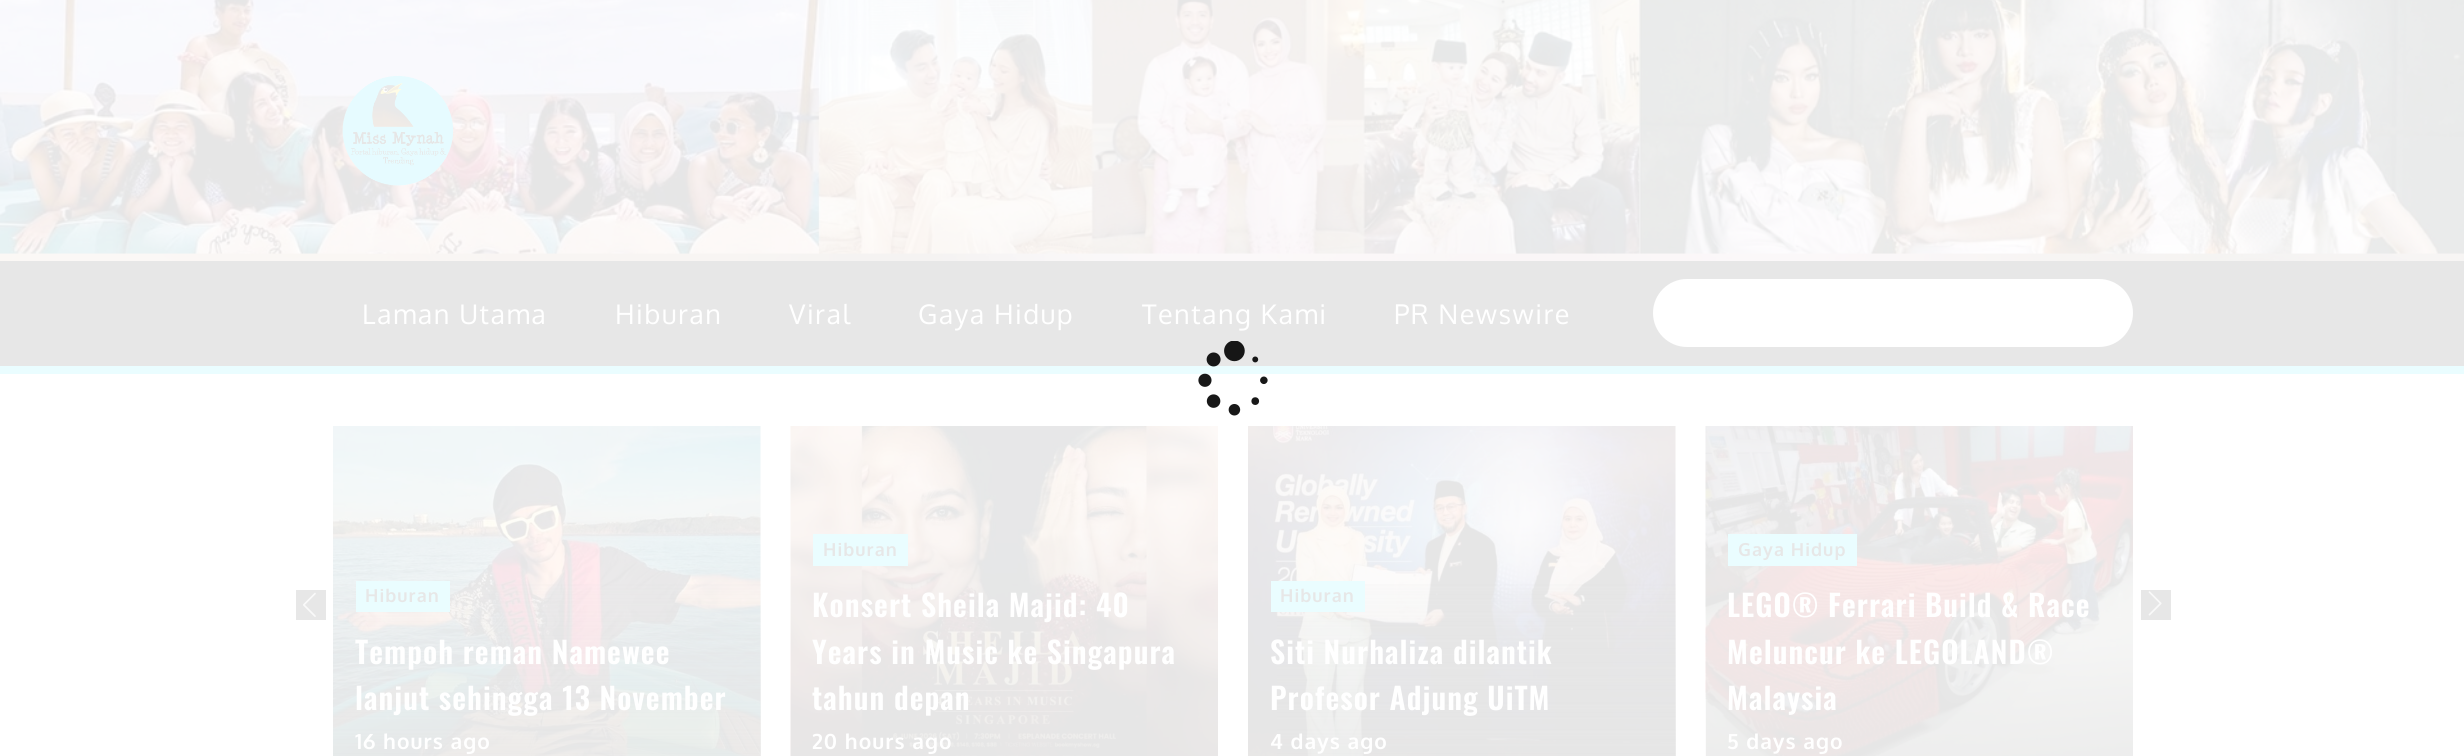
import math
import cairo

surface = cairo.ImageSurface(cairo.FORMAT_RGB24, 2464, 756)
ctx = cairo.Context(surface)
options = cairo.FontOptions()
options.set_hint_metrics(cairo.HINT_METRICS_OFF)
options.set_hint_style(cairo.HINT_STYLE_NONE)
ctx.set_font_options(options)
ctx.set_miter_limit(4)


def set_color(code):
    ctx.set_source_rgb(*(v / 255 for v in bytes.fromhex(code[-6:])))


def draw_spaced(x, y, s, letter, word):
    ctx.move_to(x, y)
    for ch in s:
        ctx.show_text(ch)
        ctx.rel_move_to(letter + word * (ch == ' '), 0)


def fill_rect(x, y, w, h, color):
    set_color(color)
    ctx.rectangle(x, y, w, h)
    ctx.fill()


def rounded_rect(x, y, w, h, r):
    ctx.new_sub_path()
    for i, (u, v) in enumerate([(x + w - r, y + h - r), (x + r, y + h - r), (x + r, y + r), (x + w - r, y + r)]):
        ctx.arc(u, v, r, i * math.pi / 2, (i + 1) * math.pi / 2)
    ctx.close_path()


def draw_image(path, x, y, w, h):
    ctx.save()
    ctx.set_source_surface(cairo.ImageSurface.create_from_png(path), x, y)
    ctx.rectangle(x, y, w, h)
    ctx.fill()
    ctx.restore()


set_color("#ffffff")
ctx.paint()
draw_image("assets/img1.png", 0, 0, 2464, 261)
draw_image("assets/img2.png", 342, 75, 112, 111)
fill_rect(0, 261, 2464, 105, "#e7e7e7")
fill_rect(0, 366, 2464, 8, "#eafdff")
ctx.select_font_face("Oxygen")
ctx.set_font_size(27)
set_color("#ffffff")
draw_spaced(362, 324, "Laman Utama", 1.5, 0)
draw_spaced(615, 324, "Hiburan", 1.5, 0)
draw_spaced(789, 324, "Viral", 1.5, 0)
draw_spaced(918, 324, "Gaya Hidup", 1.5, 0)
draw_spaced(1142, 324, "Tentang Kami", 1.5, 0)
draw_spaced(1394, 324, "PR Newswire", 1.5, 0)
rounded_rect(1653, 279, 480, 68, 34)
ctx.fill()
draw_image("assets/img3.png", 1198, 341, 70, 75)
fill_rect(296, 590, 30, 30, "#e7e7e7")
draw_image("assets/img4.png", 303, 592, 13, 25)
draw_image("assets/img5.png", 333, 426, 428, 330)
gradient = cairo.LinearGradient(547, 554, 547, 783)
gradient.add_color_stop_rgba(0, 0.902, 0.902, 0.902, 0)
gradient.add_color_stop_rgba(1, 0.902, 0.902, 0.902, 0.7)
ctx.set_source(gradient)
ctx.rectangle(333, 584, 428, 172)
ctx.fill()
fill_rect(356, 581, 94, 31, "#eafdff")
ctx.select_font_face("Oxygen", cairo.FONT_SLANT_NORMAL, cairo.FONT_WEIGHT_BOLD)
ctx.set_font_size(18)
set_color("#e7e7e7")
draw_spaced(365, 602, "Hiburan", 1.05, 0)
ctx.select_font_face("Oswald SemiBold")
ctx.set_font_size(30)
set_color("#ffffff")
draw_spaced(355, 664, "Tempoh reman Namewee", 1.05, 0)
draw_spaced(355, 710, "lanjut sehingga 13 November", 1.05, 0)
ctx.select_font_face("Oxygen", cairo.FONT_SLANT_NORMAL, cairo.FONT_WEIGHT_BOLD)
ctx.set_font_size(21)
draw_spaced(355, 749, "16 hours ago", 1.05, 0)
draw_image("assets/img6.png", 790, 426, 428, 330)
fill_rect(813, 534, 95, 32, "#eafdff")
ctx.set_font_size(18)
set_color("#e7e7e7")
draw_spaced(823, 556, "Hiburan", 1.05, 0)
ctx.select_font_face("Oswald SemiBold")
ctx.set_font_size(30)
set_color("#ffffff")
draw_spaced(812, 617, "Konsert Sheila Majid: 40", 1.05, 0)
draw_spaced(812, 664, "Years in Music ke Singapura", 1.05, 0)
draw_spaced(812, 710, "tahun depan", 1.05, 0)
ctx.select_font_face("Oxygen", cairo.FONT_SLANT_NORMAL, cairo.FONT_WEIGHT_BOLD)
ctx.set_font_size(21)
draw_spaced(812, 749, "20 hours ago", 1.05, 0)
draw_image("assets/img7.png", 1248, 426, 428, 330)
gradient = cairo.LinearGradient(1462, 554, 1462, 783)
gradient.add_color_stop_rgba(0, 0.902, 0.902, 0.902, 0)
gradient.add_color_stop_rgba(1, 0.902, 0.902, 0.902, 0.7)
ctx.set_source(gradient)
ctx.rectangle(1277, 584, 399, 172)
ctx.fill()
fill_rect(1271, 581, 94, 31, "#eafdff")
ctx.set_font_size(18)
set_color("#e7e7e7")
draw_spaced(1280, 602, "Hiburan", 1.05, 0)
ctx.select_font_face("Oswald SemiBold")
ctx.set_font_size(30)
set_color("#ffffff")
draw_spaced(1270, 664, "Siti Nurhaliza dilantik", 1.05, 0)
draw_spaced(1270, 710, "Profesor Adjung UiTM", 1.05, 0)
ctx.select_font_face("Oxygen", cairo.FONT_SLANT_NORMAL, cairo.FONT_WEIGHT_BOLD)
ctx.set_font_size(21)
draw_spaced(1270, 749, "4 days ago", 1.05, 0)
draw_image("assets/img8.png", 1705, 426, 428, 330)
fill_rect(1728, 534, 129, 32, "#eafdff")
ctx.set_font_size(18)
set_color("#e7e7e7")
draw_spaced(1738, 556, "Gaya Hidup", 1.05, 0)
ctx.select_font_face("Oswald SemiBold")
ctx.set_font_size(30)
set_color("#ffffff")
draw_spaced(1727, 617, "LEGO® Ferrari Build & Race", 1.05, 0)
draw_spaced(1727, 664, "Meluncur ke LEGOLAND®", 1.05, 0)
draw_spaced(1727, 710, "Malaysia", 1.05, 0)
ctx.select_font_face("Oxygen", cairo.FONT_SLANT_NORMAL, cairo.FONT_WEIGHT_BOLD)
ctx.set_font_size(21)
draw_spaced(1727, 749, "5 days ago", 1.05, 0)
fill_rect(2141, 590, 30, 30, "#e7e7e7")
draw_image("assets/img9.png", 2148, 591, 14, 25)
surface.write_to_png("output.png")
